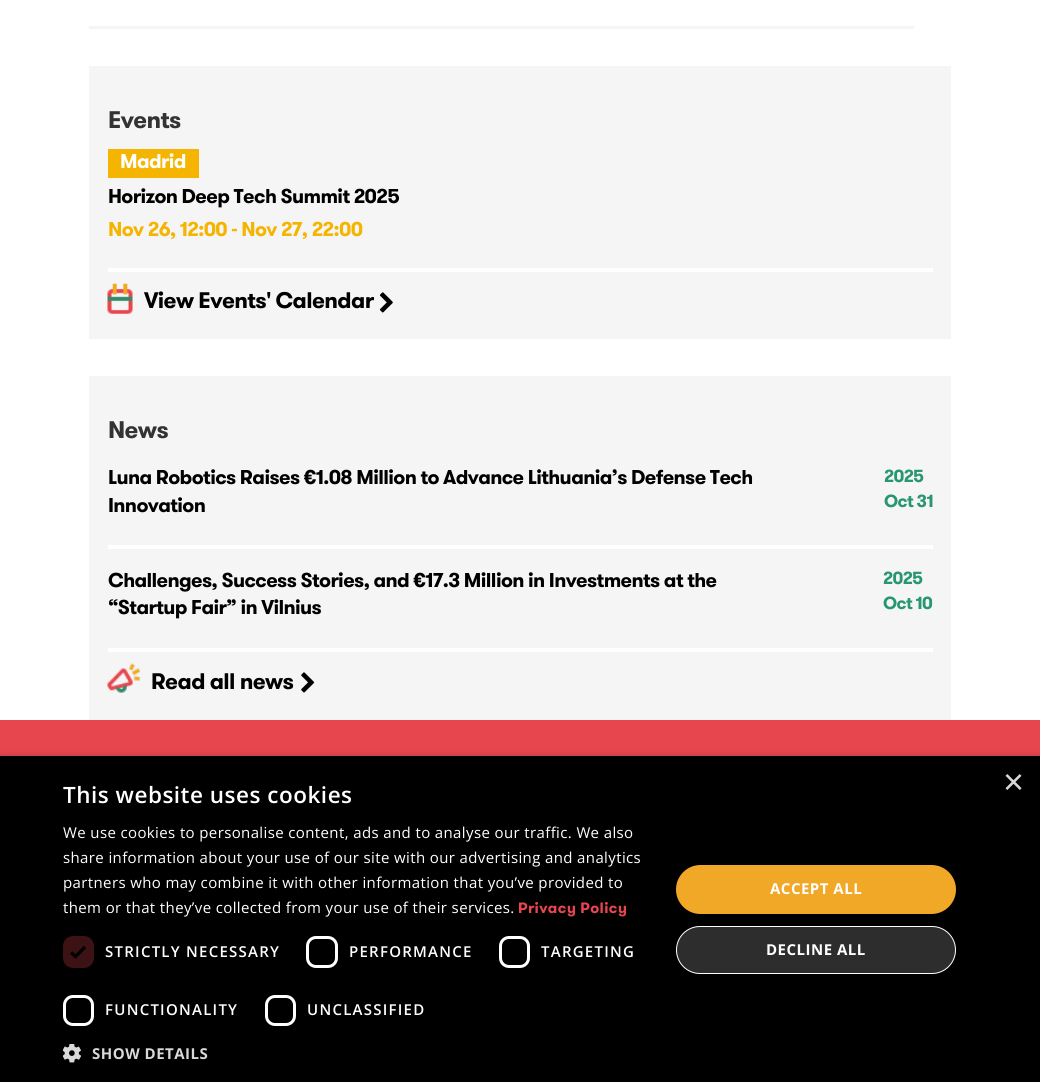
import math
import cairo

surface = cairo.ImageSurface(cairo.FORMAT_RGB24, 1040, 1082)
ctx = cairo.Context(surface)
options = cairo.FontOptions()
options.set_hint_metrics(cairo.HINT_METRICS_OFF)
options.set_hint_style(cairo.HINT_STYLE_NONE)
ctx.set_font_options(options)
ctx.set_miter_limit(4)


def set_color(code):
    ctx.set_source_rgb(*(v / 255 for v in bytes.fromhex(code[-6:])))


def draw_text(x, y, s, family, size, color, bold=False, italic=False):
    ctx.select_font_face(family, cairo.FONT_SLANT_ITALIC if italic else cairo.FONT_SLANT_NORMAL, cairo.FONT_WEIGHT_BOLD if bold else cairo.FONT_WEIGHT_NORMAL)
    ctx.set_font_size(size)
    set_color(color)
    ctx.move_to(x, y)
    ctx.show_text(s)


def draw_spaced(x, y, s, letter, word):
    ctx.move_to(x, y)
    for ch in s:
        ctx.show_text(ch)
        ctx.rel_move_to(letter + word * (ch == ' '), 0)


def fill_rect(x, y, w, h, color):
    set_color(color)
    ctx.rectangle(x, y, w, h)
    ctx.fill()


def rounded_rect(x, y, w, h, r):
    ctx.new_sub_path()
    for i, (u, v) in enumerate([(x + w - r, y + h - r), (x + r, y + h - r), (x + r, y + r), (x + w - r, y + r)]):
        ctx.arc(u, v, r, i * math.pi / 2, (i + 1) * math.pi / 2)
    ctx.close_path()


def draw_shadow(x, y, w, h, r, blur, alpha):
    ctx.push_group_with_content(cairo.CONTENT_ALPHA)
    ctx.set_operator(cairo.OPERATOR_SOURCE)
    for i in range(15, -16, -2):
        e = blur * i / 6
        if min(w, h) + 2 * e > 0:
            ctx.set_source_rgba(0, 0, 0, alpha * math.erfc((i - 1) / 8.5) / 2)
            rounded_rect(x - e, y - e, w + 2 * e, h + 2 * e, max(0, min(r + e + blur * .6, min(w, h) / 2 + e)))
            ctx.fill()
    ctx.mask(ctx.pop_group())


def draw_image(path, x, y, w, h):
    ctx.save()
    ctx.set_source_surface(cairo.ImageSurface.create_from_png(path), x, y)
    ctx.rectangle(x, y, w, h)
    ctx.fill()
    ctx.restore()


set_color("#ffffff")
ctx.paint()
fill_rect(89, 26, 825, 3, "#f5f5f5")
fill_rect(89, 66, 862, 273, "#f5f5f5")
ctx.select_font_face("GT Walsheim", cairo.FONT_SLANT_NORMAL, cairo.FONT_WEIGHT_BOLD)
ctx.set_font_size(24)
set_color("#333333")
draw_spaced(108, 128, "Events", -0.62, 0)
fill_rect(108, 149, 91, 29, "#f5b400")
ctx.set_font_size(20)
set_color("#ffffff")
draw_spaced(120, 168, "Madrid", -0.62, 0)
set_color("#000000")
draw_spaced(108, 203, "Horizon Deep Tech Summit 2025", -0.62, 0)
set_color("#f5b400")
draw_spaced(108, 236, "Nov 26, 12:00 - Nov 27, 22:00", -0.62, 0)
fill_rect(108, 268, 825, 4, "#ffffff")
draw_image("assets/img1.png", 107, 283, 26, 31)
ctx.set_font_size(22.5)
set_color("#000000")
draw_spaced(144, 308, "View Events' Calendar", -0.62, 0)
draw_image("assets/img2.png", 379, 292, 14, 21)
fill_rect(89, 376, 862, 344, "#f5f5f5")
ctx.set_font_size(24)
set_color("#333333")
draw_spaced(108, 438, "News", -0.62, 0)
ctx.set_font_size(20)
set_color("#000000")
draw_spaced(108, 484, "Luna Robotics Raises €1.08 Million to Advance Lithuania’s Defense Tech", -0.62, 0)
draw_spaced(108, 512, "Innovation", -0.62, 0)
ctx.set_font_size(17.5)
set_color("#289670")
draw_spaced(884, 482, "2025", -0.62, 0)
draw_spaced(884, 507, "Oct 31", -0.62, 0)
fill_rect(108, 545, 825, 4, "#ffffff")
ctx.set_font_size(20)
set_color("#000000")
draw_spaced(108, 587, "Challenges, Success Stories, and €17.3 Million in Investments at the", -0.62, 0)
draw_spaced(108, 614, "“Startup Fair” in Vilnius", -0.62, 0)
ctx.set_font_size(17.5)
set_color("#289670")
draw_spaced(883, 584, "2025", -0.62, 0)
draw_spaced(883, 609, "Oct 10", -0.62, 0)
fill_rect(108, 648, 825, 4, "#ffffff")
draw_image("assets/img3.png", 107, 663, 33, 30)
ctx.set_font_size(22.5)
set_color("#000000")
draw_spaced(151, 689, "Read all news", -0.62, 0)
draw_image("assets/img4.png", 301, 672, 14, 21)
fill_rect(0, 720, 1040, 36, "#e8464f")
set_color("#000000")
draw_shadow(1, 759, 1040, 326, 0, 5, 0.35)
fill_rect(0, 756, 1040, 326, "#000000")
draw_text(1003, 794, "×", "Liberation Sans", 36, "#d9d9d9")
ctx.select_font_face("Open Sans SemiBold")
ctx.set_font_size(22.5)
set_color("#ffffff")
draw_spaced(63, 803, "This website uses cookies", 0.5, 0)
ctx.select_font_face("Open Sans")
ctx.set_font_size(15)
draw_spaced(63, 838, "We use cookies to personalise content, ads and to analyse our traffic. We also", 0.38, 0)
draw_spaced(63, 863, "share information about your use of our site with our advertising and analytics", 0.38, 0)
draw_spaced(63, 888, "partners who may combine it with other information that you’ve provided to", 0.38, 0)
draw_spaced(63, 913, "them or that they’ve collected from your use of their services.", 0.38, 0)
ctx.select_font_face("GT Walsheim", cairo.FONT_SLANT_NORMAL, cairo.FONT_WEIGHT_BOLD)
set_color("#e8464f")
draw_spaced(518, 913, "Privacy Policy", 0.38, 0)
set_color("#3c1215")
rounded_rect(63, 936, 31, 32, 10)
ctx.fill()
ctx.new_path()
ctx.move_to(71, 952.5)
ctx.line_to(75.5, 956.5)
ctx.line_to(85, 947)
set_color("#000000")
ctx.set_line_width(3.3)
ctx.stroke()
set_color("#3c1215")
ctx.new_path()
ctx.move_to(66, 951)
ctx.line_to(62.5, 954.5)
ctx.line_to(66, 958)
ctx.line_to(69.5, 954.5)
ctx.close_path()
ctx.fill()
ctx.new_path()
ctx.move_to(64.5, 949.5)
ctx.line_to(66, 951)
ctx.line_to(62.5, 954.5)
ctx.line_to(60.5, 953)
ctx.line_to(64.5, 956.5)
ctx.line_to(68, 953)
ctx.close_path()
ctx.fill()
ctx.select_font_face("Open Sans SemiBold")
set_color("#ffffff")
draw_spaced(105, 957, "STRICTLY NECESSARY", 1.25, 0)
rounded_rect(307.5, 937.5, 29, 29, 8.5)
ctx.set_line_width(3)
ctx.stroke()
draw_spaced(349, 957, "PERFORMANCE", 1.25, 0)
rounded_rect(500.5, 937.5, 28, 29, 8.5)
ctx.stroke()
draw_spaced(541, 957, "TARGETING", 1.25, 0)
rounded_rect(64.5, 996.5, 28, 28, 8.5)
ctx.stroke()
draw_spaced(105, 1015, "FUNCTIONALITY", 1.25, 0)
rounded_rect(266.5, 996.5, 28, 28, 8.5)
ctx.stroke()
draw_spaced(307, 1015, "UNCLASSIFIED", 1.25, 0)
draw_image("assets/img5.png", 63, 1044, 18, 19)
ctx.select_font_face("Open Sans", cairo.FONT_SLANT_NORMAL, cairo.FONT_WEIGHT_BOLD)
set_color("#d9d9d9")
draw_spaced(92, 1059, "SHOW DETAILS", 0.5, 0)
set_color("#f1a827")
rounded_rect(676, 865, 280, 49, 24.5)
ctx.fill()
set_color("#ffffff")
draw_spaced(770, 894, "ACCEPT ALL", 0.5, 0)
set_color("#2d2d2d")
rounded_rect(676.5, 926.5, 279, 47, 23.5)
ctx.fill_preserve()
set_color("#ffffff")
ctx.set_line_width(1)
ctx.stroke()
draw_spaced(766, 955, "DECLINE ALL", 0.5, 0)
surface.write_to_png("output.png")
